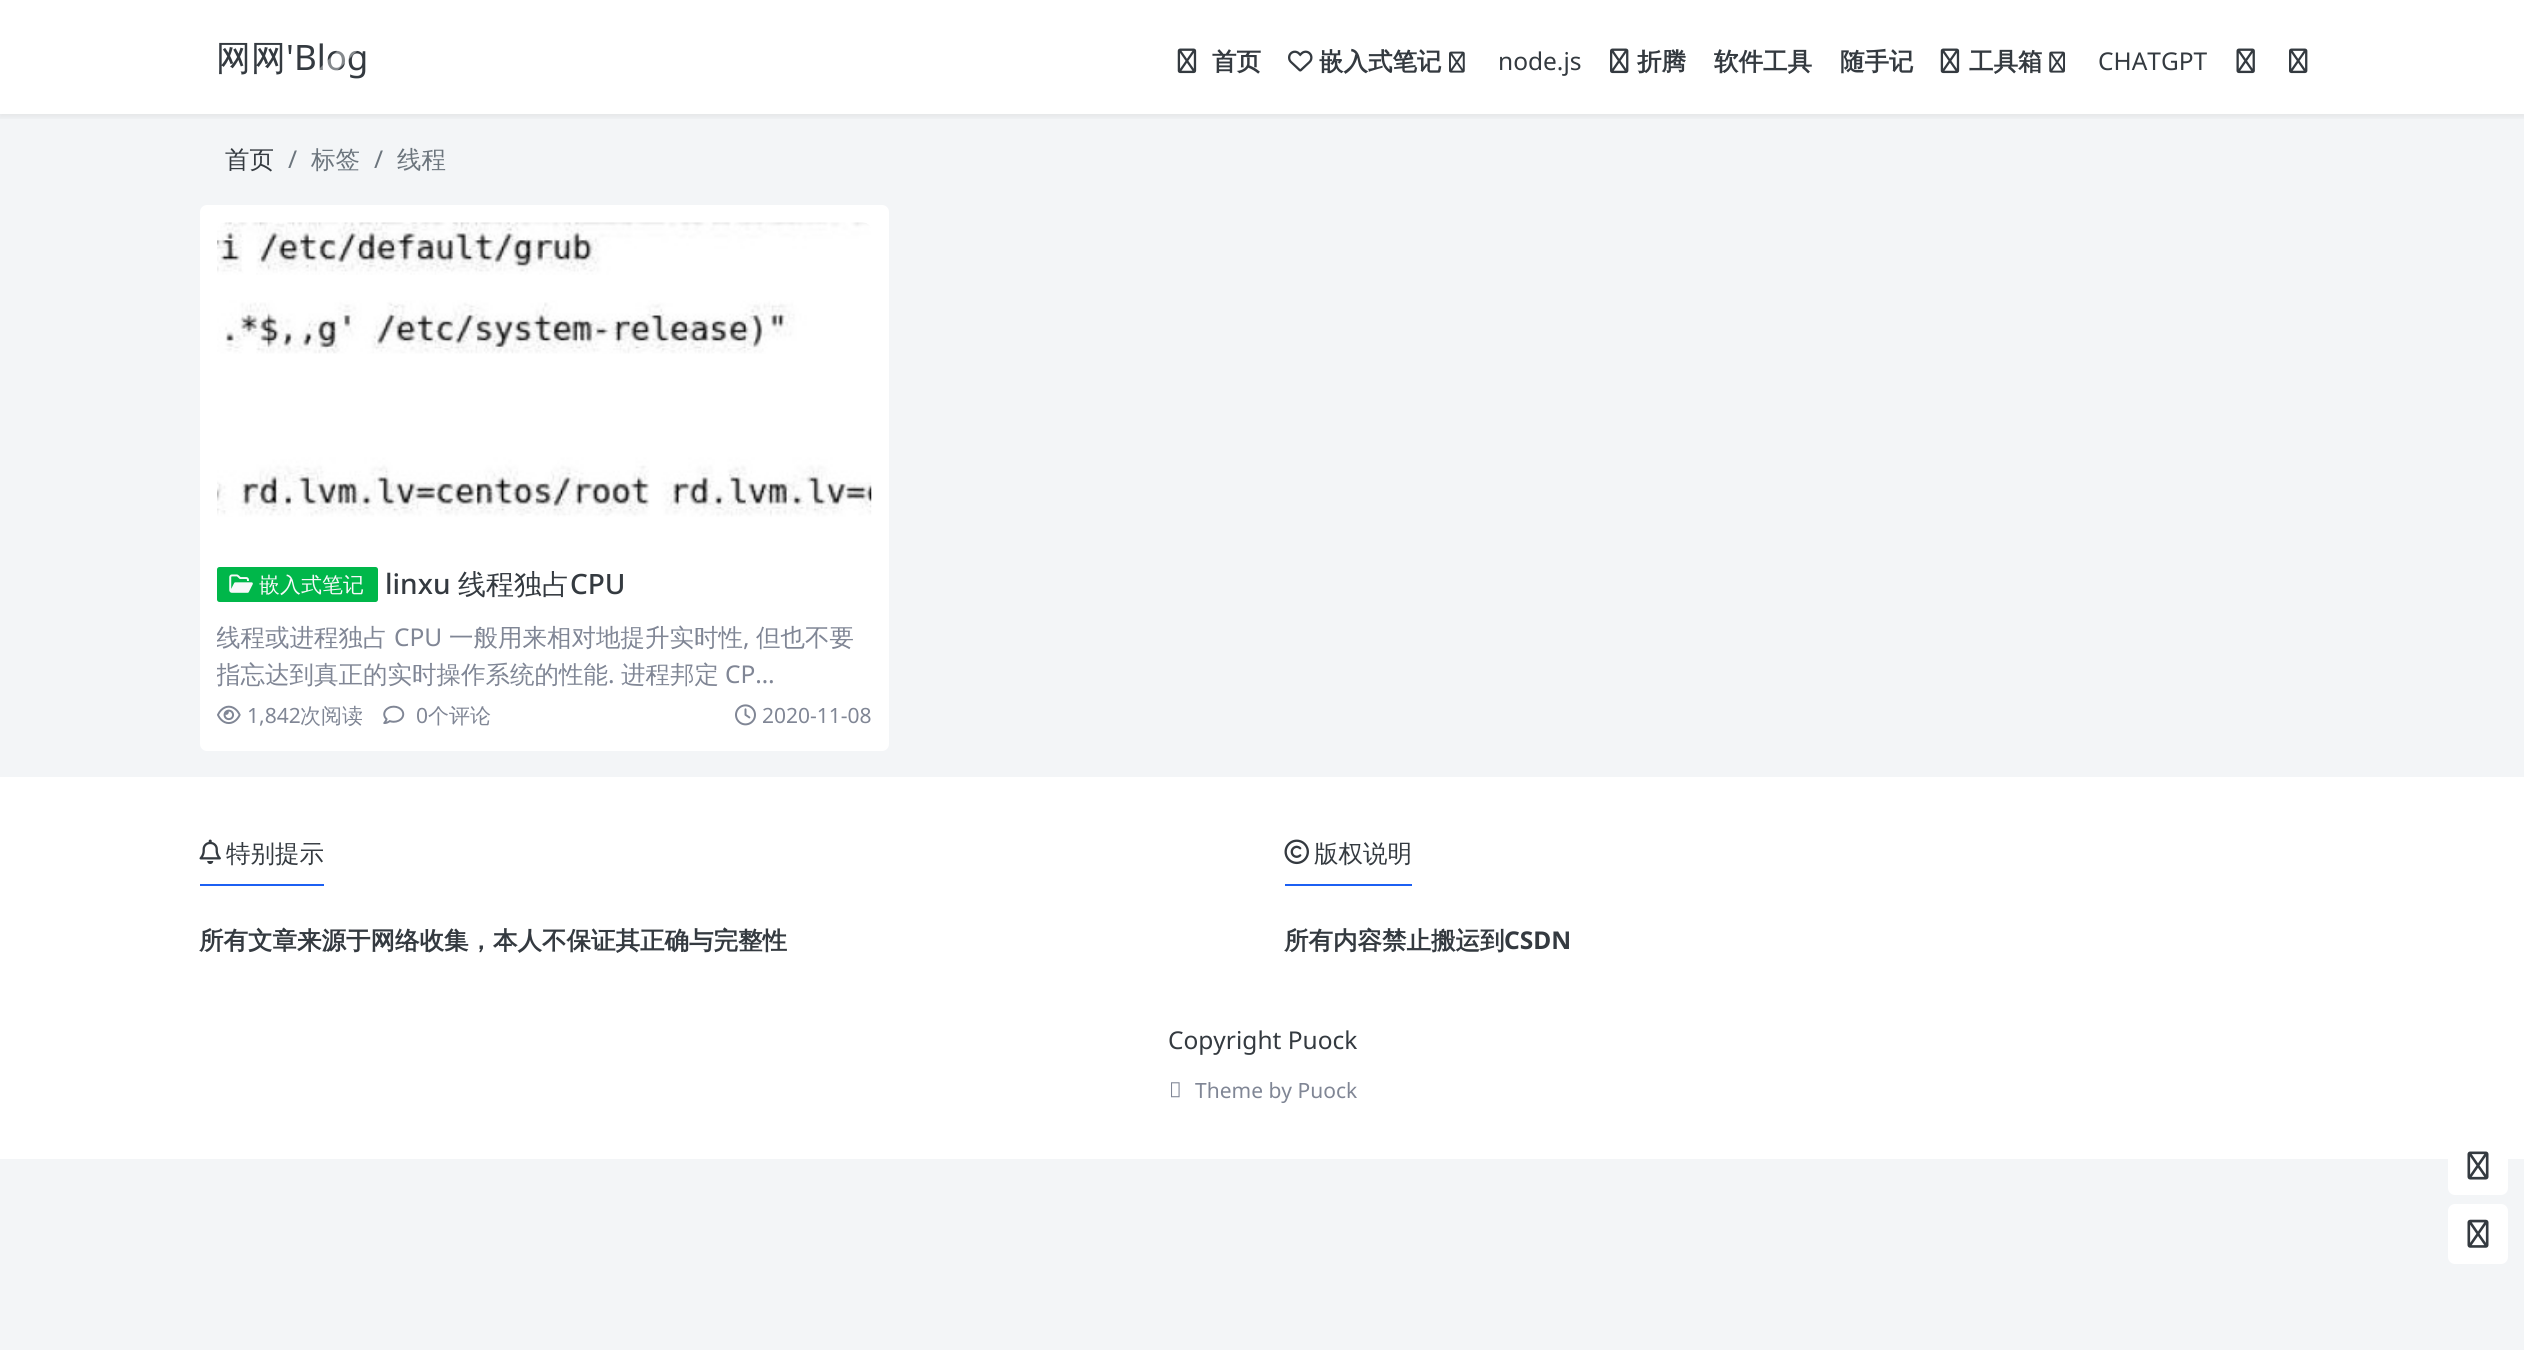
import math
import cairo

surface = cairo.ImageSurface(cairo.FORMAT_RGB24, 2524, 1350)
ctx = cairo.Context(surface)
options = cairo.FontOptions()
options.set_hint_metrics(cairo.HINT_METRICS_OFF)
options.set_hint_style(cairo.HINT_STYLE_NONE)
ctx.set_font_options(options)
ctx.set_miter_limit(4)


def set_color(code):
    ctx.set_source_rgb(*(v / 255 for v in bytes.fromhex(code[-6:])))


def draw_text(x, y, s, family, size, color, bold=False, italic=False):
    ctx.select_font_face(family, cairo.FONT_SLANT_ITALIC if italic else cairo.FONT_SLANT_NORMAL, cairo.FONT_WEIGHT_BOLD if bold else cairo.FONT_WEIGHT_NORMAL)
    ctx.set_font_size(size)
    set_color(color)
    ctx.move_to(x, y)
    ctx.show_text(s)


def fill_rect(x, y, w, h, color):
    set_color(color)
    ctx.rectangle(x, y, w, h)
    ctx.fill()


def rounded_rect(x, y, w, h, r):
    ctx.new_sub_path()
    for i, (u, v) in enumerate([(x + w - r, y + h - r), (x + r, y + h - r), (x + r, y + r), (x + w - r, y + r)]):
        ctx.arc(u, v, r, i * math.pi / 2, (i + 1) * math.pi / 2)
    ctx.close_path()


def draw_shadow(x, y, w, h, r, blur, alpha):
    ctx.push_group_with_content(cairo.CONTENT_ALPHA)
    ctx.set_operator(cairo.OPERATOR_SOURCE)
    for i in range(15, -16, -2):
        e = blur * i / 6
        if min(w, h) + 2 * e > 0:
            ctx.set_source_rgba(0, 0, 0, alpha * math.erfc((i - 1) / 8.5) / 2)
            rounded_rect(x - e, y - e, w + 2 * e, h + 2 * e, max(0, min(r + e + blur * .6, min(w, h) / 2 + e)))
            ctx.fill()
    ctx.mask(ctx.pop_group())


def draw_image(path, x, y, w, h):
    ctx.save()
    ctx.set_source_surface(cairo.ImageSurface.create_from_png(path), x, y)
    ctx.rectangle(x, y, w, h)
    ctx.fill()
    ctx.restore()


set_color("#f3f5f7")
ctx.paint()
fill_rect(0, 0, 2524, 114, "#ffffff")
ctx.save()
ctx.rectangle(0, 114, 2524, 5)
ctx.clip()
set_color("#000000")
draw_shadow(0, 4, 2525, 113, 0, 3.5, 0.07)
ctx.restore()
draw_text(216, 70, "网网", "WenQuanYi Zen Hei Medium", 35, "#343a40")
draw_text(286, 70, "'Blog", "Noto Sans", 35, "#343a40")
ctx.save()
ctx.rectangle(200, 0, 187, 114)
ctx.clip()
ctx.set_source_rgba(1, 1, 1, 0.4)
ctx.new_path()
ctx.move_to(257, 131)
ctx.line_to(480, -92)
ctx.line_to(490, -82)
ctx.line_to(267, 141)
ctx.close_path()
ctx.fill()
ctx.restore()
draw_image("assets/img1.png", 1177, 48, 20, 26)
draw_text(1212, 70, "首页", "WenQuanYi Zen Hei", 24.5, "#343a40", bold=True)
draw_image("assets/img2.png", 1288, 50, 25, 22)
draw_text(1319, 70, "嵌入式笔记", "WenQuanYi Zen Hei", 24.5, "#343a40", bold=True)
draw_image("assets/img3.png", 1449, 51, 16, 22)
draw_text(1498, 70, "node.js", "Noto Sans", 24.5, "#343a40")
draw_image("assets/img4.png", 1610, 48, 19, 26)
draw_text(1637, 70, "折腾", "WenQuanYi Zen Hei", 24.5, "#343a40", bold=True)
draw_text(1714, 70, "软件工具", "WenQuanYi Zen Hei", 24.5, "#343a40", bold=True)
draw_text(1840, 70, "随手记", "WenQuanYi Zen Hei", 24.5, "#343a40", bold=True)
draw_image("assets/img1.png", 1940, 48, 20, 26)
draw_text(1969, 70, "工具箱", "WenQuanYi Zen Hei", 24.5, "#343a40", bold=True)
draw_image("assets/img5.png", 2049, 51, 16, 22)
draw_text(2098, 70, "CHATGPT", "Noto Sans", 24.5, "#343a40")
draw_image("assets/img6.png", 2236, 48, 19, 26)
draw_image("assets/img4.png", 2289, 48, 19, 26)
draw_text(225, 168, "首页", "WenQuanYi Zen Hei Medium", 24.5, "#343a40")
draw_text(288, 168, "/", "Noto Sans", 24.5, "#6c757d")
draw_text(311, 168, "标签", "WenQuanYi Zen Hei Medium", 24.5, "#6c757d")
draw_text(374, 168, "/", "Noto Sans", 24.5, "#6c757d")
draw_text(397, 168, "线程", "WenQuanYi Zen Hei Medium", 24.5, "#6c757d")
set_color("#ffffff")
rounded_rect(200, 205, 689, 546, 7)
ctx.fill()
draw_image("assets/img7.png", 217, 222, 655, 295)
set_color("#00b74a")
rounded_rect(217, 567, 161, 35, 2.5)
ctx.fill()
draw_image("assets/img8.png", 229, 574, 24, 19)
draw_text(259, 592, "嵌入式笔记", "WenQuanYi Zen Hei Medium", 21, "#f8f9fa")
draw_text(385, 594, "linxu", "Noto Sans Medium", 28, "#343a40")
draw_text(458, 594, "线程独占", "WenQuanYi Zen Hei Medium", 28, "#343a40")
draw_text(570, 594, "CPU", "Noto Sans Medium", 28, "#343a40")
ctx.save()
ctx.rectangle(217, 618, 655, 73)
ctx.clip()
draw_text(216, 646, "线程或进程独占", "WenQuanYi Zen Hei Medium", 24.5, "#808695")
ctx.restore()
draw_text(394, 646, "CPU", "Noto Sans", 24.5, "#808695")
draw_text(449, 646, "一般用来相对地提升实时性", "WenQuanYi Zen Hei Medium", 24.5, "#808695")
draw_text(743, 646, ",", "Noto Sans", 24.5, "#808695")
draw_text(756, 646, "但也不要", "WenQuanYi Zen Hei Medium", 24.5, "#808695")
ctx.save()
ctx.rectangle(217, 618, 655, 73)
ctx.clip()
draw_text(216, 683, "指忘达到真正的实时操作系统的性能", "WenQuanYi Zen Hei Medium", 24.5, "#808695")
ctx.restore()
draw_text(608, 683, ".", "Noto Sans", 24.5, "#808695")
draw_text(621, 683, "进程邦定", "WenQuanYi Zen Hei Medium", 24.5, "#808695")
draw_text(725, 683, "CP…", "Noto Sans", 24.5, "#808695")
draw_image("assets/img9.png", 217, 705, 24, 19)
draw_text(247, 723, "1,842", "Noto Sans", 21, "#808695")
draw_text(300, 723, "次阅读", "WenQuanYi Zen Hei Medium", 21, "#808695")
draw_image("assets/img10.png", 383, 705, 22, 19)
draw_text(416, 723, "0", "Noto Sans", 21, "#808695")
draw_text(428, 723, "个评论", "WenQuanYi Zen Hei Medium", 21, "#808695")
draw_image("assets/img11.png", 735, 704, 21, 22)
draw_text(762, 723, "2020-11-08", "Noto Sans", 21, "#808695")
fill_rect(0, 777, 2524, 382, "#ffffff")
fill_rect(200, 884, 124, 2, "#1c60f3")
draw_image("assets/img12.png", 199, 839, 22, 25)
draw_text(226, 862, "特别提示", "WenQuanYi Zen Hei Medium", 24.5, "#343a40")
draw_text(199, 949, "所有文章来源于网络收集，本人不保证其正确与完整性", "WenQuanYi Zen Hei", 24.5, "#343a40", bold=True)
fill_rect(1285, 884, 127, 2, "#1c60f3")
draw_image("assets/img13.png", 1284, 839, 25, 26)
draw_text(1314, 862, "版权说明", "WenQuanYi Zen Hei Medium", 24.5, "#343a40")
draw_text(1284, 949, "所有内容禁止搬运到", "WenQuanYi Zen Hei", 24.5, "#343a40", bold=True)
draw_text(1504, 949, "CSDN", "Noto Sans", 24.5, "#343a40", bold=True)
draw_text(1168, 1049, "Copyright Puock", "Noto Sans", 24.5, "#343a40")
draw_image("assets/img14.png", 1171, 1082, 9, 16)
draw_text(1195, 1098, "Theme by Puock", "Noto Sans", 21, "#808695")
set_color("#ffffff")
rounded_rect(2448, 1136, 60, 59, 7)
ctx.fill()
draw_image("assets/img15.png", 2467, 1151, 22, 29)
rounded_rect(2448, 1204, 60, 60, 7)
ctx.fill()
draw_image("assets/img16.png", 2467, 1219, 22, 29)
surface.write_to_png("output.png")
